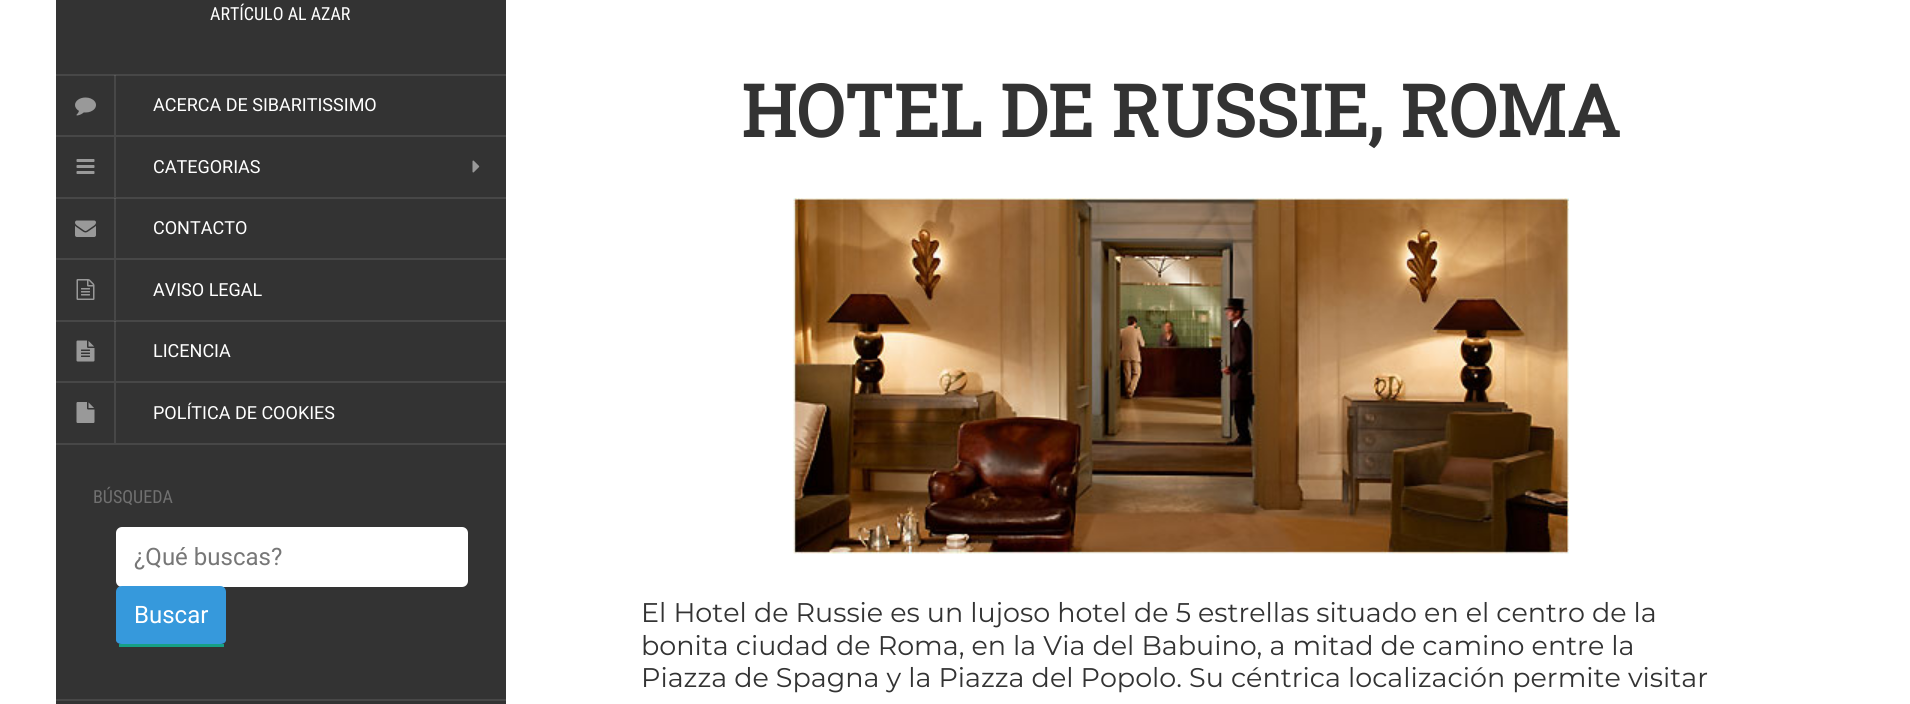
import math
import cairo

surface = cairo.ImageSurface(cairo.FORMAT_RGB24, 1910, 704)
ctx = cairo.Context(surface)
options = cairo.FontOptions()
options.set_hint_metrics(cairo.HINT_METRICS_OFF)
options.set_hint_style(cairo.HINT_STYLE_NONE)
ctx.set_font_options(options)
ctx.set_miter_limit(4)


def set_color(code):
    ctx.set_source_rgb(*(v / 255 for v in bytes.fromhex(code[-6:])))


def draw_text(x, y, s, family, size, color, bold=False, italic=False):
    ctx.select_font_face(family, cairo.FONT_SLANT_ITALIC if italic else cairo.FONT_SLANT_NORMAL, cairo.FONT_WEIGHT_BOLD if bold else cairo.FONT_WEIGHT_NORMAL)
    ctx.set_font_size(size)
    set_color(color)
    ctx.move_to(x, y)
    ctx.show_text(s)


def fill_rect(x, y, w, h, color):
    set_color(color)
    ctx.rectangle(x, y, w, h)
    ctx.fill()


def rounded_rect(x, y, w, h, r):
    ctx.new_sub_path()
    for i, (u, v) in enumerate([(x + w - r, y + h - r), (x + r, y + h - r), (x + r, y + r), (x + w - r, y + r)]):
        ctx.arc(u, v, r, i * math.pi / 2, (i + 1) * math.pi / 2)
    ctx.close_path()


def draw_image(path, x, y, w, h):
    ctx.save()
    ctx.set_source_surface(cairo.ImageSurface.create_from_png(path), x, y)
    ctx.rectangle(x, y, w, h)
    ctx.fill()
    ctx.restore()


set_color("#ffffff")
ctx.paint()
fill_rect(56, 0, 450, 704, "#333333")
fill_rect(114, 321, 2, 60, "#474747")
fill_rect(114, 198, 2, 60, "#474747")
fill_rect(114, 75, 2, 60, "#474747")
fill_rect(56, 74, 450, 2, "#474747")
fill_rect(114, 75, 2, 1, "#595959")
draw_text(210, 20, "ARTÍCULO AL AZAR", "Roboto Condensed", 18, "#ffffff")
fill_rect(56, 135, 450, 2, "#474747")
draw_image("assets/img1.png", 75, 97, 21, 19)
draw_text(153, 111, "ACERCA DE SIBARITISSIMO", "Roboto", 18, "#ffffff")
fill_rect(56, 197, 450, 2, "#474747")
fill_rect(114, 198, 2, 1, "#595959")
fill_rect(114, 137, 2, 60, "#474747")
draw_image("assets/img2.png", 76, 159, 19, 15)
draw_text(153, 173, "CATEGORIAS", "Roboto", 18, "#ffffff")
draw_image("assets/img3.png", 472, 160, 8, 13)
fill_rect(56, 258, 450, 2, "#474747")
draw_image("assets/img4.png", 75, 220, 21, 17)
draw_text(153, 234, "CONTACTO", "Roboto", 18, "#ffffff")
fill_rect(56, 320, 450, 2, "#474747")
fill_rect(114, 321, 2, 1, "#595959")
fill_rect(114, 260, 2, 60, "#474747")
draw_image("assets/img5.png", 76, 279, 19, 21)
draw_text(153, 296, "AVISO LEGAL", "Roboto", 18, "#ffffff")
fill_rect(56, 381, 450, 2, "#474747")
draw_image("assets/img6.png", 76, 340, 19, 22)
draw_text(153, 357, "LICENCIA", "Roboto", 18, "#ffffff")
fill_rect(56, 443, 450, 2, "#474747")
fill_rect(114, 383, 2, 60, "#474747")
draw_image("assets/img7.png", 76, 402, 19, 21)
draw_text(153, 419, "POLÍTICA DE COOKIES", "Roboto", 18, "#ffffff")
fill_rect(56, 699, 450, 2, "#474747")
draw_text(93, 503, "BÚSQUEDA", "Roboto Condensed", 18, "#707070")
set_color("#ffffff")
rounded_rect(116, 527, 352, 60, 6)
ctx.fill()
draw_text(134, 565, "¿Qué buscas?", "Roboto", 24, "#777777")
set_color("#3699dc")
ctx.new_path()
ctx.move_to(122, 586)
ctx.line_to(220, 586)
ctx.curve_to(224, 586, 226, 589, 226, 592)
ctx.line_to(226, 640)
ctx.curve_to(226, 642, 224, 644, 220, 644)
ctx.line_to(122, 644)
ctx.curve_to(118, 644, 116, 642, 116, 640)
ctx.line_to(116, 592)
ctx.curve_to(116, 589, 118, 586, 122, 586)
ctx.close_path()
ctx.fill()
fill_rect(119, 644, 105, 3, "#16a085")
draw_text(134, 623, "Buscar", "Roboto", 24, "#ffffff")
draw_text(741, 137, "HOTEL DE RUSSIE, ROMA", "Roboto Slab", 72, "#333333", bold=True)
draw_image("assets/img8.png", 793, 198, 776, 356)
draw_text(641, 622, "El Hotel de Russie es un lujoso hotel de 5 estrellas situado en el centro de la", "Montserrat", 27, "#333333")
draw_text(641, 655, "bonita ciudad de Roma, en la Via del Babuino, a mitad de camino entre la", "Montserrat", 27, "#333333")
draw_text(641, 687, "Piazza de Spagna y la Piazza del Popolo. Su céntrica localización permite visitar", "Montserrat", 27, "#333333")
surface.write_to_png("output.png")
